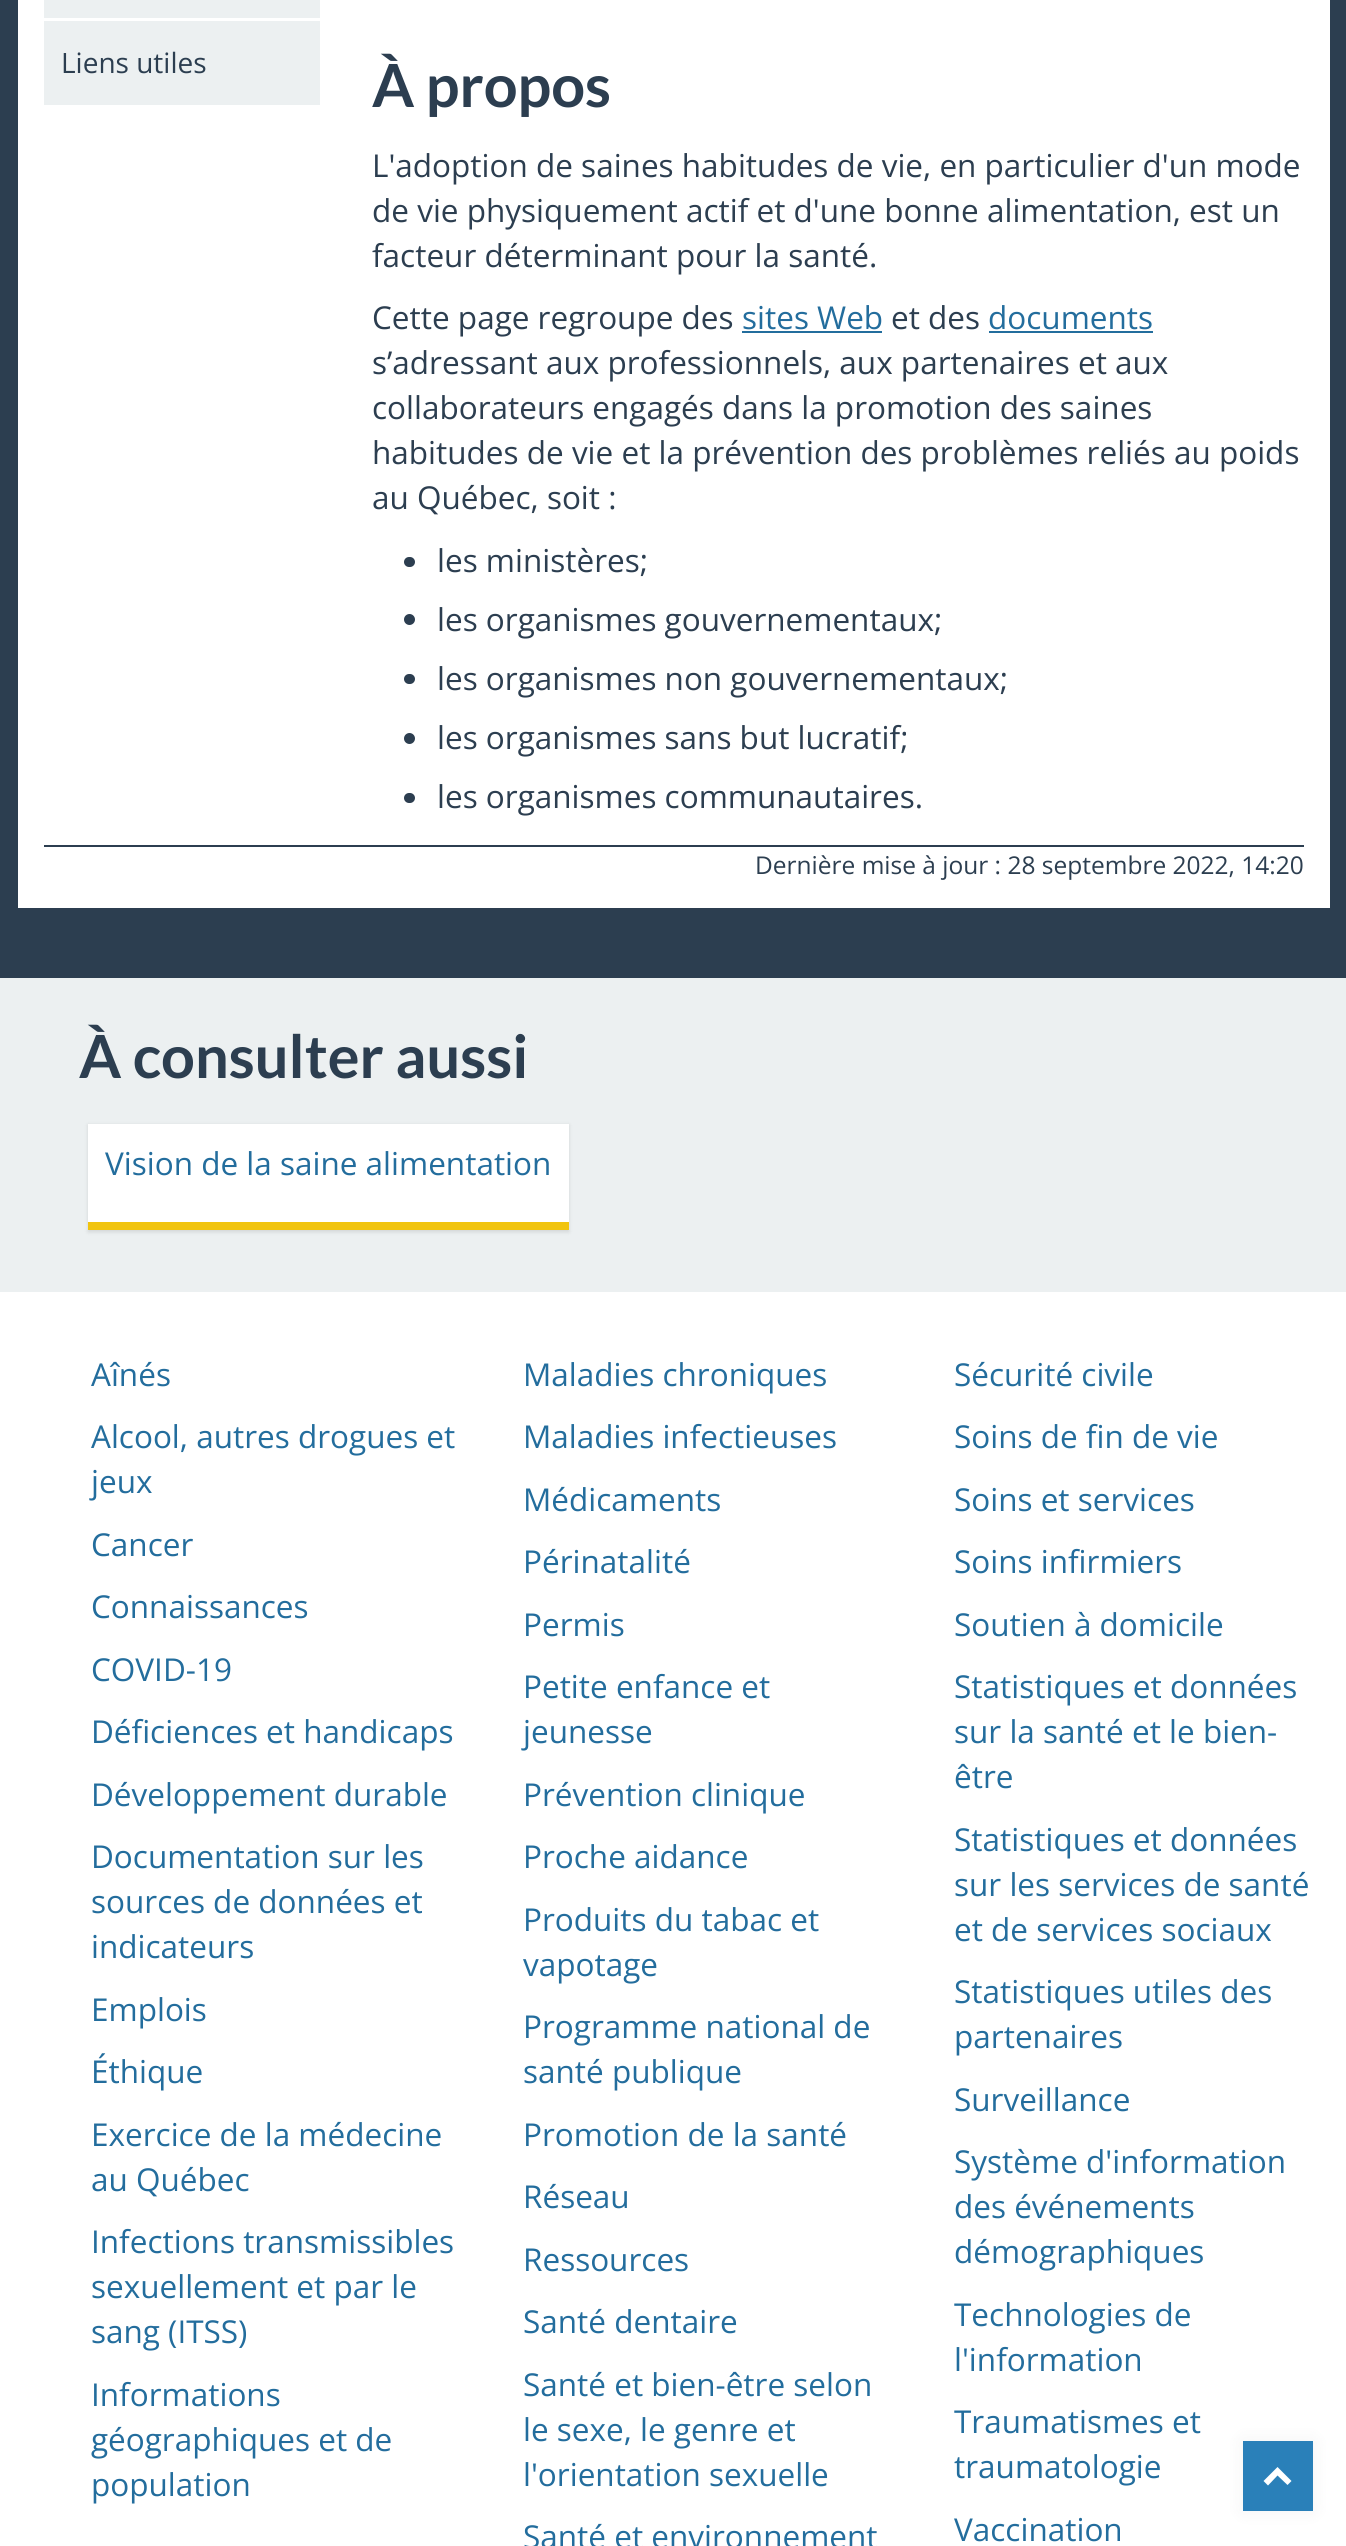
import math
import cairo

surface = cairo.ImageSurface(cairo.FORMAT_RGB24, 1346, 2546)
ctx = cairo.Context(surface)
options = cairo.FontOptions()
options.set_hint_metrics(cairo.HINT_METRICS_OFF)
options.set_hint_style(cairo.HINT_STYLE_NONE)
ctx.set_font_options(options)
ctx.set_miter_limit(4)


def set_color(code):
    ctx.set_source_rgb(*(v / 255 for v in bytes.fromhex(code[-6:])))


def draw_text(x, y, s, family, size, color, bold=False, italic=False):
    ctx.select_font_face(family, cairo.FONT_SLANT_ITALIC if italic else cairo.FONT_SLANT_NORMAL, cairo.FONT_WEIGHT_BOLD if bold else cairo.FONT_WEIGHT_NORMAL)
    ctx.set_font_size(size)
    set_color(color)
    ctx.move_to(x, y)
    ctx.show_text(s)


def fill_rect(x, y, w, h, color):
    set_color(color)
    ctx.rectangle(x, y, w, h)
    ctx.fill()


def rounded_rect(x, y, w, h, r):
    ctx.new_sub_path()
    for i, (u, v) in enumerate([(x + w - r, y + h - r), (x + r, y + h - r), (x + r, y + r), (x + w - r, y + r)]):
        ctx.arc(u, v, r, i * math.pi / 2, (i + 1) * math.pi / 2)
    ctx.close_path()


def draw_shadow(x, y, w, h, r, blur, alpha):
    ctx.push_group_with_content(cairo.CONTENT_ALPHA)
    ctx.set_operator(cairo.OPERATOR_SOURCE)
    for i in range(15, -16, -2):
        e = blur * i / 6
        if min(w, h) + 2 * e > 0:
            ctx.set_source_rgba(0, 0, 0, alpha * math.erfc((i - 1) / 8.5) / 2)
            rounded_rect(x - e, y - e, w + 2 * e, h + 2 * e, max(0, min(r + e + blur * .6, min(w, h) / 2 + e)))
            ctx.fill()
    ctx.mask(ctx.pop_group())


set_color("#ffffff")
ctx.paint()
fill_rect(0, 0, 1346, 978, "#2c3e50")
fill_rect(18, 0, 1312, 908, "#ffffff")
fill_rect(44, 0, 276, 18, "#ecf0f1")
fill_rect(44, 21, 276, 84, "#ecf0f1")
draw_text(61, 73, "Liens utiles", "Open Sans", 28, "#2c3e50")
draw_text(372, 107, "À propos", "Lato", 59.5, "#2c3e50", bold=True)
draw_text(372, 177, "L'adoption de saines habitudes de vie, en particulier d'un mode", "Open Sans", 31.5, "#2c3e50")
draw_text(372, 222, "de vie physiquement actif et d'une bonne alimentation, est un", "Open Sans", 31.5, "#2c3e50")
draw_text(372, 267, "facteur déterminant pour la santé.", "Open Sans", 31.5, "#2c3e50")
draw_text(372, 329, "Cette page regroupe des", "Open Sans", 31.5, "#2c3e50")
draw_text(742, 329, "sites Web", "Open Sans", 31.5, "#236d9d")
fill_rect(742, 331, 140, 2, "#236d9d")
draw_text(891, 329, "et des", "Open Sans", 31.5, "#2c3e50")
draw_text(988, 329, "documents", "Open Sans", 31.5, "#236d9d")
fill_rect(989, 331, 164, 2, "#236d9d")
draw_text(372, 374, "s’adressant aux professionnels, aux partenaires et aux", "Open Sans", 31.5, "#2c3e50")
draw_text(372, 419, "collaborateurs engagés dans la promotion des saines", "Open Sans", 31.5, "#2c3e50")
draw_text(372, 464, "habitudes de vie et la prévention des problèmes reliés au poids", "Open Sans", 31.5, "#2c3e50")
draw_text(372, 509, "au Québec, soit :", "Open Sans", 31.5, "#2c3e50")
rounded_rect(404, 557, 11, 10, 5)
ctx.fill()
draw_text(437, 572, "les ministères;", "Open Sans", 31.5, "#2c3e50")
ctx.new_path()
ctx.arc(409.5, 619.5, 5.5, 0, 2 * math.pi)
ctx.fill()
draw_text(437, 631, "les organismes gouvernementaux;", "Open Sans", 31.5, "#2c3e50")
rounded_rect(404, 674, 11, 10, 5)
ctx.fill()
draw_text(437, 690, "les organismes non gouvernementaux;", "Open Sans", 31.5, "#2c3e50")
ctx.new_path()
ctx.arc(409.5, 738.5, 5.5, 0, 2 * math.pi)
ctx.fill()
draw_text(437, 749, "les organismes sans but lucratif;", "Open Sans", 31.5, "#2c3e50")
rounded_rect(404, 793, 11, 10, 5)
ctx.fill()
draw_text(437, 808, "les organismes communautaires.", "Open Sans", 31.5, "#2c3e50")
fill_rect(44, 845, 1260, 2, "#2c3e50")
draw_text(755, 874, "Dernière mise à jour : 28 septembre 2022, 14:20", "Open Sans", 24.5, "#2c3e50")
fill_rect(0, 978, 1346, 314, "#ecf0f1")
draw_text(79, 1078, "À consulter aussi", "Lato", 59.5, "#2c3e50", bold=True)
set_color("#000000")
draw_shadow(88, 1125, 481, 107, 0, 2, 0.11)
fill_rect(88, 1124, 481, 98, "#ffffff")
fill_rect(88, 1222, 481, 8, "#f1c40f")
draw_text(105, 1175, "Vision de la saine alimentation", "Open Sans", 31.5, "#236d9d")
draw_text(91, 1386, "Aînés", "Open Sans", 31.5, "#236d9d")
draw_text(91, 1448, "Alcool, autres drogues et", "Open Sans", 31.5, "#236d9d")
draw_text(91, 1493, "jeux", "Open Sans", 31.5, "#236d9d")
draw_text(91, 1556, "Cancer", "Open Sans", 31.5, "#236d9d")
draw_text(91, 1618, "Connaissances", "Open Sans", 31.5, "#236d9d")
draw_text(91, 1681, "COVID-19", "Open Sans", 31.5, "#236d9d")
draw_text(91, 1743, "Déficiences et handicaps", "Open Sans", 31.5, "#236d9d")
draw_text(91, 1806, "Développement durable", "Open Sans", 31.5, "#236d9d")
draw_text(91, 1868, "Documentation sur les", "Open Sans", 31.5, "#236d9d")
draw_text(91, 1913, "sources de données et", "Open Sans", 31.5, "#236d9d")
draw_text(91, 1958, "indicateurs", "Open Sans", 31.5, "#236d9d")
draw_text(91, 2021, "Emplois", "Open Sans", 31.5, "#236d9d")
draw_text(91, 2083, "Éthique", "Open Sans", 31.5, "#236d9d")
draw_text(91, 2146, "Exercice de la médecine", "Open Sans", 31.5, "#236d9d")
draw_text(91, 2191, "au Québec", "Open Sans", 31.5, "#236d9d")
draw_text(91, 2253, "Infections transmissibles", "Open Sans", 31.5, "#236d9d")
draw_text(91, 2298, "sexuellement et par le", "Open Sans", 31.5, "#236d9d")
draw_text(91, 2343, "sang (ITSS)", "Open Sans", 31.5, "#236d9d")
draw_text(91, 2406, "Informations", "Open Sans", 31.5, "#236d9d")
draw_text(91, 2451, "géographiques et de", "Open Sans", 31.5, "#236d9d")
draw_text(91, 2496, "population", "Open Sans", 31.5, "#236d9d")
draw_text(523, 1386, "Maladies chroniques", "Open Sans", 31.5, "#236d9d")
draw_text(523, 1448, "Maladies infectieuses", "Open Sans", 31.5, "#236d9d")
draw_text(523, 1511, "Médicaments", "Open Sans", 31.5, "#236d9d")
draw_text(523, 1573, "Périnatalité", "Open Sans", 31.5, "#236d9d")
draw_text(523, 1636, "Permis", "Open Sans", 31.5, "#236d9d")
draw_text(523, 1698, "Petite enfance et", "Open Sans", 31.5, "#236d9d")
draw_text(523, 1743, "jeunesse", "Open Sans", 31.5, "#236d9d")
draw_text(523, 1806, "Prévention clinique", "Open Sans", 31.5, "#236d9d")
draw_text(523, 1868, "Proche aidance", "Open Sans", 31.5, "#236d9d")
draw_text(523, 1931, "Produits du tabac et", "Open Sans", 31.5, "#236d9d")
draw_text(523, 1976, "vapotage", "Open Sans", 31.5, "#236d9d")
draw_text(523, 2038, "Programme national de", "Open Sans", 31.5, "#236d9d")
draw_text(523, 2083, "santé publique", "Open Sans", 31.5, "#236d9d")
draw_text(523, 2146, "Promotion de la santé", "Open Sans", 31.5, "#236d9d")
draw_text(523, 2208, "Réseau", "Open Sans", 31.5, "#236d9d")
draw_text(523, 2271, "Ressources", "Open Sans", 31.5, "#236d9d")
draw_text(523, 2333, "Santé dentaire", "Open Sans", 31.5, "#236d9d")
draw_text(523, 2396, "Santé et bien-être selon", "Open Sans", 31.5, "#236d9d")
draw_text(523, 2441, "le sexe, le genre et", "Open Sans", 31.5, "#236d9d")
draw_text(523, 2486, "l'orientation sexuelle", "Open Sans", 31.5, "#236d9d")
draw_text(523, 2548, "Santé et environnement", "Open Sans", 31.5, "#236d9d")
draw_text(954, 1386, "Sécurité civile", "Open Sans", 31.5, "#236d9d")
draw_text(954, 1448, "Soins de fin de vie", "Open Sans", 31.5, "#236d9d")
draw_text(954, 1511, "Soins et services", "Open Sans", 31.5, "#236d9d")
draw_text(954, 1573, "Soins infirmiers", "Open Sans", 31.5, "#236d9d")
draw_text(954, 1636, "Soutien à domicile", "Open Sans", 31.5, "#236d9d")
draw_text(954, 1698, "Statistiques et données", "Open Sans", 31.5, "#236d9d")
draw_text(954, 1743, "sur la santé et le bien-", "Open Sans", 31.5, "#236d9d")
draw_text(954, 1788, "être", "Open Sans", 31.5, "#236d9d")
draw_text(954, 1851, "Statistiques et données", "Open Sans", 31.5, "#236d9d")
draw_text(954, 1896, "sur les services de santé", "Open Sans", 31.5, "#236d9d")
draw_text(954, 1941, "et de services sociaux", "Open Sans", 31.5, "#236d9d")
draw_text(954, 2003, "Statistiques utiles des", "Open Sans", 31.5, "#236d9d")
draw_text(954, 2048, "partenaires", "Open Sans", 31.5, "#236d9d")
draw_text(954, 2111, "Surveillance", "Open Sans", 31.5, "#236d9d")
draw_text(954, 2173, "Système d'information", "Open Sans", 31.5, "#236d9d")
draw_text(954, 2218, "des événements", "Open Sans", 31.5, "#236d9d")
draw_text(954, 2263, "démographiques", "Open Sans", 31.5, "#236d9d")
draw_text(954, 2326, "Technologies de", "Open Sans", 31.5, "#236d9d")
draw_text(954, 2371, "l'information", "Open Sans", 31.5, "#236d9d")
draw_text(954, 2433, "Traumatismes et", "Open Sans", 31.5, "#236d9d")
draw_text(954, 2478, "traumatologie", "Open Sans", 31.5, "#236d9d")
draw_text(954, 2541, "Vaccination", "Open Sans", 31.5, "#236d9d")
set_color("#000000")
draw_shadow(1243, 2441, 70, 70, 0, 9, 0.05)
fill_rect(1243, 2441, 70, 70, "#2a80b9")
set_color("#ffffff")
ctx.new_path()
ctx.move_to(1277.5, 2467)
ctx.line_to(1291.5, 2481)
ctx.line_to(1287.5, 2485)
ctx.line_to(1277.5, 2475.5)
ctx.line_to(1268, 2485.5)
ctx.line_to(1263.5, 2481)
ctx.close_path()
ctx.fill()
surface.write_to_png("output.png")
